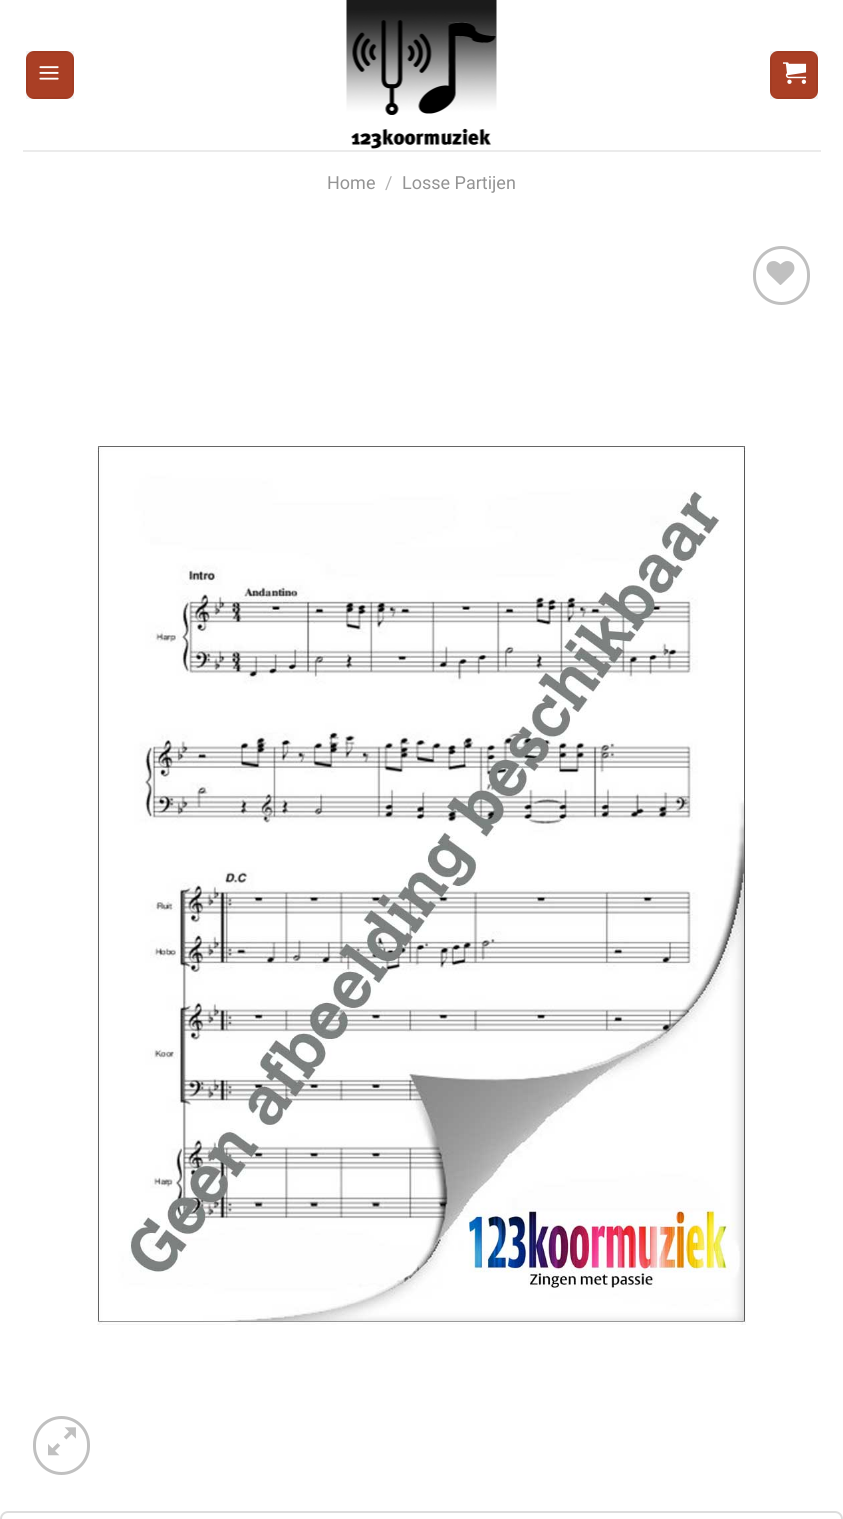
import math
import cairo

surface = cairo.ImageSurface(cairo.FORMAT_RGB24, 843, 1519)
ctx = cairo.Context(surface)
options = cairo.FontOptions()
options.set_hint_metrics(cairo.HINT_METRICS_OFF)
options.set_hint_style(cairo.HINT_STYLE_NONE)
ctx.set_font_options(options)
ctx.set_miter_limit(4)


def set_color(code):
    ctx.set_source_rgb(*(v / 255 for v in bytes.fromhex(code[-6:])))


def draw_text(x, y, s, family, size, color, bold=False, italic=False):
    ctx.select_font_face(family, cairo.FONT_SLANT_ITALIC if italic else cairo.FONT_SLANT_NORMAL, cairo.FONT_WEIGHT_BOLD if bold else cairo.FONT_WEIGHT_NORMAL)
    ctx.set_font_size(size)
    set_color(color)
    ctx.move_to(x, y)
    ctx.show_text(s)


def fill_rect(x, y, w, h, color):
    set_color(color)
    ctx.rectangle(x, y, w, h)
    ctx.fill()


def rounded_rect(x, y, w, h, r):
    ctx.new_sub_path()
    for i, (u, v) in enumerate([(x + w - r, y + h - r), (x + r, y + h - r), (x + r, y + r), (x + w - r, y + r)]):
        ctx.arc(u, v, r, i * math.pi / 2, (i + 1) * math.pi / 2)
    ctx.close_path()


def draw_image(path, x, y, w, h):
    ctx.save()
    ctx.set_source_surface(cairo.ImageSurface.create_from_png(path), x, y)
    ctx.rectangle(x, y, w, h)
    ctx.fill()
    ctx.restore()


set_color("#ffffff")
ctx.paint()
set_color("#aa3f25")
rounded_rect(26, 51, 48, 48, 8)
ctx.fill()
ctx.rectangle(27, 52, 46, 46)
ctx.set_source_rgba(0, 0, 0, 0.05)
ctx.stroke()
draw_image("assets/img1.png", 39, 66, 20, 14)
draw_image("assets/img2.png", 346, 0, 151, 149)
set_color("#aa3f25")
rounded_rect(770, 51, 48, 48, 8)
ctx.fill()
ctx.rectangle(771, 52, 46, 46)
ctx.set_source_rgba(0, 0, 0, 0.05)
ctx.stroke()
draw_image("assets/img3.png", 783, 62, 24, 22)
fill_rect(23, 150, 798, 2, "#ebebeb")
draw_text(327, 189, "Home", "Roboto", 18, "#949494")
draw_text(385, 189, "/", "Roboto", 18, "#b2b2b2")
draw_text(402, 189, "Losse Partijen", "Roboto", 18, "#949494")
rounded_rect(754.5, 247.5, 54, 56, 27)
set_color("#c0c0c0")
ctx.set_line_width(3)
ctx.stroke()
draw_image("assets/img4.png", 766, 261, 29, 24)
draw_image("assets/img5.png", 97, 446, 649, 879)
rounded_rect(34.5, 1417.5, 54, 56, 27)
ctx.stroke()
draw_image("assets/img6.png", 48, 1427, 28, 29)
rounded_rect(1, 1512, 841, 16, 7)
set_color("#dddddd")
ctx.set_line_width(2)
ctx.stroke()
surface.write_to_png("output.png")
